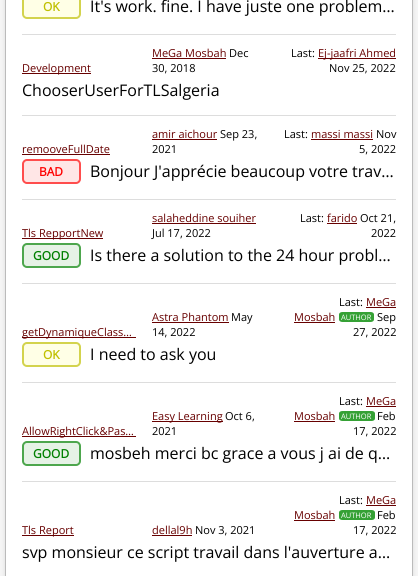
import math
import cairo

surface = cairo.ImageSurface(cairo.FORMAT_RGB24, 418, 576)
ctx = cairo.Context(surface)
options = cairo.FontOptions()
options.set_hint_metrics(cairo.HINT_METRICS_OFF)
options.set_hint_style(cairo.HINT_STYLE_NONE)
ctx.set_font_options(options)
ctx.set_miter_limit(4)


def set_color(code):
    ctx.set_source_rgb(*(v / 255 for v in bytes.fromhex(code[-6:])))


def draw_text(x, y, s, family, size, color, bold=False, italic=False):
    ctx.select_font_face(family, cairo.FONT_SLANT_ITALIC if italic else cairo.FONT_SLANT_NORMAL, cairo.FONT_WEIGHT_BOLD if bold else cairo.FONT_WEIGHT_NORMAL)
    ctx.set_font_size(size)
    set_color(color)
    ctx.move_to(x, y)
    ctx.show_text(s)


def fill_rect(x, y, w, h, color):
    set_color(color)
    ctx.rectangle(x, y, w, h)
    ctx.fill()


def rounded_rect(x, y, w, h, r):
    ctx.new_sub_path()
    for i, (u, v) in enumerate([(x + w - r, y + h - r), (x + r, y + h - r), (x + r, y + r), (x + w - r, y + r)]):
        ctx.arc(u, v, r, i * math.pi / 2, (i + 1) * math.pi / 2)
    ctx.close_path()


def draw_shadow(x, y, w, h, r, blur, alpha):
    ctx.push_group_with_content(cairo.CONTENT_ALPHA)
    ctx.set_operator(cairo.OPERATOR_SOURCE)
    for i in range(15, -16, -2):
        e = blur * i / 6
        if min(w, h) + 2 * e > 0:
            ctx.set_source_rgba(0, 0, 0, alpha * math.erfc((i - 1) / 8.5) / 2)
            rounded_rect(x - e, y - e, w + 2 * e, h + 2 * e, max(0, min(r + e + blur * .6, min(w, h) / 2 + e)))
            ctx.fill()
    ctx.mask(ctx.pop_group())


set_color("#f6f6f6")
ctx.paint()
set_color("#dddddd")
draw_shadow(5, -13, 408, 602, 5, 2.5, 1)
set_color("#ffffff")
ctx.rectangle(5.5, -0.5, 407, 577)
ctx.fill_preserve()
set_color("#bbbbbb")
ctx.set_line_width(1)
ctx.stroke()
set_color("#ffffe6")
rounded_rect(23, -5, 57, 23, 4)
ctx.fill_preserve()
set_color("#d3d34d")
ctx.set_line_width(2)
ctx.stroke()
draw_text(43, 11, "OK", "Open Sans", 12, "#c0c000", bold=True)
draw_text(90, 12, "It's work. fine. I have juste one problem…", "Open Sans", 16, "#000000")
fill_rect(22, 34, 374, 1, "#dddddd")
fill_rect(22, 73, 69, 1, "#670000")
draw_text(22, 72, "Development", "Open Sans", 11, "#670000")
draw_text(152, 57, "MeGa Mosbah", "Open Sans", 11, "#670000")
fill_rect(152, 58, 74, 1, "#670000")
draw_text(229, 57, "Dec", "Open Sans", 11, "#000000")
draw_text(152, 72, "30, 2018", "Open Sans", 11, "#000000")
draw_text(291, 57, "Last:", "Open Sans", 11, "#000000")
fill_rect(318, 58, 78, 1, "#670000")
draw_text(318, 57, "Ej-jaafri Ahmed", "Open Sans", 11, "#670000")
draw_text(329, 72, "Nov 25, 2022", "Open Sans", 11, "#000000")
draw_text(22, 96, "ChooserUserForTLSalgeria", "Open Sans", 16, "#000000")
fill_rect(22, 115, 374, 1, "#dddddd")
draw_text(22, 153, "remooveFullDate", "Open Sans", 11, "#670000")
fill_rect(22, 154, 88, 1, "#670000")
draw_text(152, 138, "amir aichour", "Open Sans", 11, "#670000")
fill_rect(152, 139, 65, 1, "#670000")
draw_text(220, 138, "Sep 23,", "Open Sans", 11, "#000000")
draw_text(152, 153, "2021", "Open Sans", 11, "#000000")
draw_text(284, 138, "Last:", "Open Sans", 11, "#000000")
draw_text(311, 138, "massi massi", "Open Sans", 11, "#670000")
fill_rect(311, 139, 62, 1, "#670000")
draw_text(376, 138, "Nov", "Open Sans", 11, "#000000")
draw_text(359, 153, "5, 2022", "Open Sans", 11, "#000000")
set_color("#ffe6e6")
rounded_rect(23, 160, 57, 23, 4)
ctx.fill_preserve()
set_color("#ff4d4d")
ctx.stroke()
draw_text(39, 176, "BAD", "Open Sans", 12, "#ff0000", bold=True)
draw_text(90, 177, "Bonjour J'apprécie beaucoup votre trav…", "Open Sans", 16, "#000000")
fill_rect(22, 199, 374, 1, "#dddddd")
fill_rect(22, 238, 81, 1, "#670000")
draw_text(22, 237, "Tls RepportNew", "Open Sans", 11, "#670000")
draw_text(152, 222, "salaheddine souiher", "Open Sans", 11, "#670000")
fill_rect(152, 223, 104, 1, "#670000")
draw_text(152, 237, "Jul 17, 2022", "Open Sans", 11, "#000000")
draw_text(300, 222, "Last:", "Open Sans", 11, "#000000")
draw_text(327, 222, "farido", "Open Sans", 11, "#670000")
fill_rect(327, 223, 30, 1, "#670000")
draw_text(360, 222, "Oct 21,", "Open Sans", 11, "#000000")
draw_text(371, 237, "2022", "Open Sans", 11, "#000000")
set_color("#e6f2e6")
rounded_rect(23, 244, 57, 23, 4)
ctx.fill_preserve()
set_color("#4da64d")
ctx.stroke()
draw_text(33, 260, "GOOD", "Open Sans", 12, "#008000", bold=True)
draw_text(90, 261, "Is there a solution to the 24 hour probl…", "Open Sans", 16, "#000000")
fill_rect(22, 283, 374, 1, "#dddddd")
fill_rect(22, 337, 114, 1, "#670000")
draw_text(22, 336, "getDynamiqueClass…", "Open Sans", 11, "#670000")
draw_text(152, 321, "Astra Phantom", "Open Sans", 11, "#670000")
fill_rect(152, 322, 77, 1, "#670000")
draw_text(231, 321, "May", "Open Sans", 11, "#000000")
draw_text(152, 336, "14, 2022", "Open Sans", 11, "#000000")
draw_text(339, 306, "Last:", "Open Sans", 11, "#000000")
draw_text(366, 306, "MeGa", "Open Sans", 11, "#670000")
fill_rect(366, 307, 30, 1, "#670000")
draw_text(294, 321, "Mosbah", "Open Sans", 11, "#670000")
fill_rect(294, 322, 41, 1, "#670000")
set_color("#35a135")
ctx.new_path()
ctx.move_to(342.5, 312)
ctx.line_to(370.5, 312)
ctx.curve_to(372.5, 312, 374, 313, 374, 314.5)
ctx.line_to(374, 319.5)
ctx.curve_to(374, 321, 372.5, 322, 370.5, 322)
ctx.line_to(342.5, 322)
ctx.curve_to(340.5, 322, 339, 321, 339, 319.5)
ctx.line_to(339, 314.5)
ctx.curve_to(339, 313, 340.5, 312, 342.5, 312)
ctx.close_path()
ctx.fill()
draw_text(341, 320, "AUTHOR", "Open Sans", 7.5, "#ffffff")
draw_text(377, 321, "Sep", "Open Sans", 11, "#000000")
draw_text(353, 336, "27, 2022", "Open Sans", 11, "#000000")
set_color("#ffffe6")
rounded_rect(23, 343, 57, 23, 4)
ctx.fill_preserve()
set_color("#d3d34d")
ctx.stroke()
draw_text(43, 359, "OK", "Open Sans", 12, "#c0c000", bold=True)
draw_text(90, 360, "I need to ask you", "Open Sans", 16, "#000000")
fill_rect(22, 382, 374, 1, "#dddddd")
fill_rect(22, 436, 114, 1, "#670000")
draw_text(22, 435, "AllowRightClick&Pas…", "Open Sans", 11, "#670000")
fill_rect(152, 421, 71, 1, "#670000")
draw_text(152, 420, "Easy Learning", "Open Sans", 11, "#670000")
draw_text(225, 420, "Oct 6,", "Open Sans", 11, "#000000")
draw_text(152, 435, "2021", "Open Sans", 11, "#000000")
draw_text(339, 405, "Last:", "Open Sans", 11, "#000000")
draw_text(366, 405, "MeGa", "Open Sans", 11, "#670000")
fill_rect(366, 406, 30, 1, "#670000")
draw_text(294, 420, "Mosbah", "Open Sans", 11, "#670000")
fill_rect(294, 421, 41, 1, "#670000")
set_color("#35a135")
ctx.new_path()
ctx.move_to(342.5, 411)
ctx.line_to(371.5, 411)
ctx.curve_to(373.5, 411, 375, 412, 375, 413.5)
ctx.line_to(375, 418.5)
ctx.curve_to(375, 420, 373.5, 421, 371.5, 421)
ctx.line_to(342.5, 421)
ctx.curve_to(340.5, 421, 339, 420, 339, 418.5)
ctx.line_to(339, 413.5)
ctx.curve_to(339, 412, 340.5, 411, 342.5, 411)
ctx.close_path()
ctx.fill()
draw_text(341, 419, "AUTHOR", "Open Sans", 7.5, "#ffffff")
draw_text(377, 420, "Feb", "Open Sans", 11, "#000000")
draw_text(353, 435, "17, 2022", "Open Sans", 11, "#000000")
set_color("#e6f2e6")
rounded_rect(23, 442, 57, 23, 4)
ctx.fill_preserve()
set_color("#4da64d")
ctx.stroke()
draw_text(33, 458, "GOOD", "Open Sans", 12, "#008000", bold=True)
draw_text(90, 459, "mosbeh merci bc grace a vous j ai de q…", "Open Sans", 16, "#000000")
fill_rect(22, 481, 374, 1, "#dddddd")
fill_rect(22, 535, 52, 1, "#670000")
draw_text(22, 534, "Tls Report", "Open Sans", 11, "#670000")
draw_text(152, 534, "dellal9h", "Open Sans", 11, "#670000")
fill_rect(152, 535, 40, 1, "#670000")
draw_text(195, 534, "Nov 3, 2021", "Open Sans", 11, "#000000")
draw_text(339, 504, "Last:", "Open Sans", 11, "#000000")
draw_text(366, 504, "MeGa", "Open Sans", 11, "#670000")
fill_rect(366, 505, 30, 1, "#670000")
draw_text(294, 519, "Mosbah", "Open Sans", 11, "#670000")
fill_rect(294, 520, 41, 1, "#670000")
set_color("#35a135")
ctx.new_path()
ctx.move_to(342.5, 510)
ctx.line_to(371.5, 510)
ctx.curve_to(373.5, 510, 375, 511, 375, 512.5)
ctx.line_to(375, 517.5)
ctx.curve_to(375, 519, 373.5, 520, 371.5, 520)
ctx.line_to(342.5, 520)
ctx.curve_to(340.5, 520, 339, 519, 339, 517.5)
ctx.line_to(339, 512.5)
ctx.curve_to(339, 511, 340.5, 510, 342.5, 510)
ctx.close_path()
ctx.fill()
draw_text(341, 518, "AUTHOR", "Open Sans", 7.5, "#ffffff")
draw_text(377, 519, "Feb", "Open Sans", 11, "#000000")
draw_text(353, 534, "17, 2022", "Open Sans", 11, "#000000")
draw_text(22, 558, "svp monsieur ce script travail dans l'auverture a…", "Open Sans", 16, "#000000")
surface.write_to_png("output.png")
